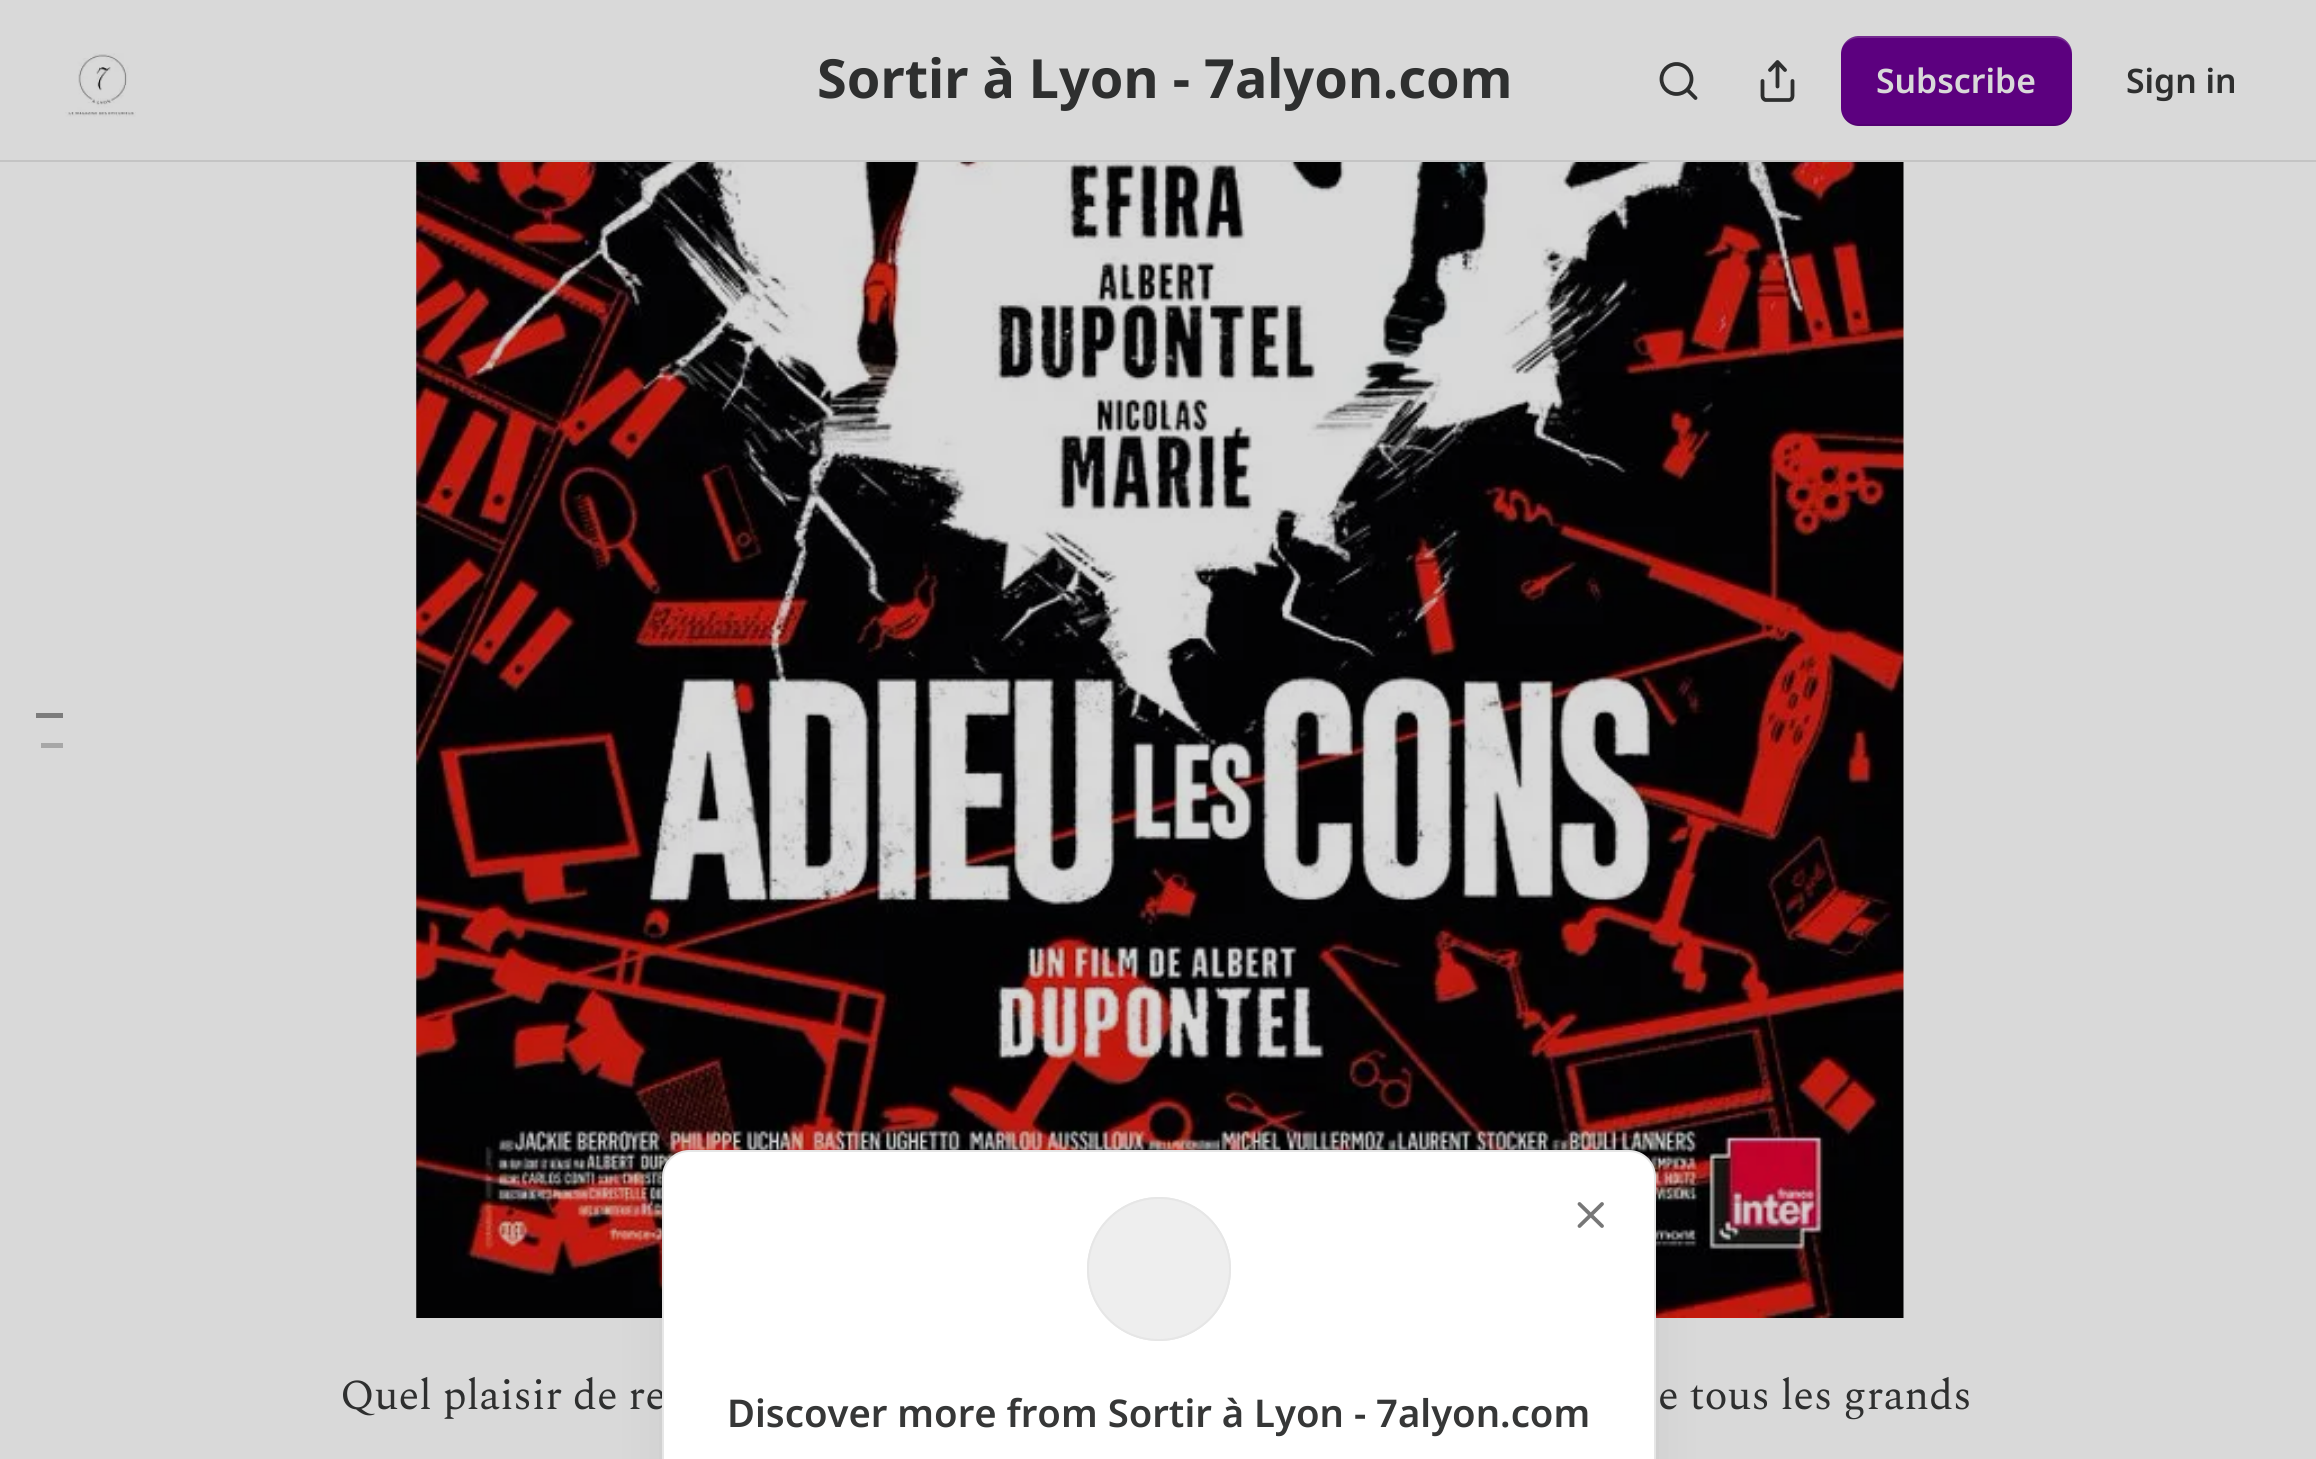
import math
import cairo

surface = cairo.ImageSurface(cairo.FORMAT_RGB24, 2316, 1459)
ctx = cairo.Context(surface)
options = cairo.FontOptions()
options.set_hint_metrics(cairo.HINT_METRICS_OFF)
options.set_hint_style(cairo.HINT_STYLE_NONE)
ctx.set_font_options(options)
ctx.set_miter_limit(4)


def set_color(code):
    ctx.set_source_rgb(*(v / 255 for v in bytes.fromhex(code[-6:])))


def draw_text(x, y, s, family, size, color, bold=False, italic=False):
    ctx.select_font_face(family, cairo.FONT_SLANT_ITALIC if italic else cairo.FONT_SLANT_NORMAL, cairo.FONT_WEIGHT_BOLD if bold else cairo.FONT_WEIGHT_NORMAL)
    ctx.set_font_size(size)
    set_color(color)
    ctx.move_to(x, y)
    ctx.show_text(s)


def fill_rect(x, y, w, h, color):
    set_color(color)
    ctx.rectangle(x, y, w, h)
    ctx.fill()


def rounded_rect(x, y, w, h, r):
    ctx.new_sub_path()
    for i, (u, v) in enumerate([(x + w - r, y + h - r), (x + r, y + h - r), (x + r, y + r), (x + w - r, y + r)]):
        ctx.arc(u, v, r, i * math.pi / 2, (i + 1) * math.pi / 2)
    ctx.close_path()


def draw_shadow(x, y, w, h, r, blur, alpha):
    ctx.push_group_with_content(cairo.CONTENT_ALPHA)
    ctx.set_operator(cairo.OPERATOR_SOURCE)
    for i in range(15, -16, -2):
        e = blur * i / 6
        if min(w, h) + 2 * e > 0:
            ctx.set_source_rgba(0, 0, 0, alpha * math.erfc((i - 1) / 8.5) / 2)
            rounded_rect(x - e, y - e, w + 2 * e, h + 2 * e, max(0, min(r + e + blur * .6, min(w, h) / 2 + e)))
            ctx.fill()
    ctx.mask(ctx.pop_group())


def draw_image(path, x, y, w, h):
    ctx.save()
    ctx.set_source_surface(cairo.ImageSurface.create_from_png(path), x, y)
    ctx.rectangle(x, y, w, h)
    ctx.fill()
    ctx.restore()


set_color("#d9d9d9")
ctx.paint()
fill_rect(0, 160, 2316, 2, "#c4c4c4")
draw_image("assets/img1.png", 65, 53, 71, 64)
draw_text(817, 98, "Sortir à Lyon - 7alyon.com", "Noto Sans", 54, "#2e2f2f", bold=True)
ctx.new_path()
ctx.arc(1676.5, 79, 15, 0, 2 * math.pi)
ctx.set_line_width(3.8)
ctx.stroke()
ctx.new_path()
ctx.move_to(1695.5, 98)
ctx.line_to(1687.5, 90)
ctx.set_line_cap(cairo.LINE_CAP_ROUND)
ctx.set_line_join(cairo.LINE_JOIN_ROUND)
ctx.stroke()
ctx.new_path()
ctx.move_to(1762.5, 81)
ctx.line_to(1762.5, 96)
ctx.curve_to(1762.5, 98, 1764, 100, 1766, 100)
ctx.line_to(1789, 100)
ctx.curve_to(1791, 100, 1792.5, 98, 1792.5, 96)
ctx.line_to(1792.5, 81)
ctx.move_to(1785, 70)
ctx.line_to(1777.5, 62)
ctx.line_to(1770, 70)
ctx.move_to(1777.5, 62)
ctx.line_to(1777.5, 86.5)
ctx.stroke()
set_color("#5c007f")
rounded_rect(1841, 36, 231, 90, 18)
ctx.fill()
ctx.set_source_rgba(0, 0, 0, 0.1)
ctx.new_path()
ctx.move_to(1842, 114)
ctx.curve_to(1844, 121, 1851, 126, 1859, 126)
ctx.line_to(2054, 126)
ctx.curve_to(2064, 126, 2072, 118, 2072, 108)
ctx.line_to(2072, 106)
ctx.curve_to(2072, 116, 2064, 124, 2054, 124)
ctx.line_to(1858, 124)
ctx.curve_to(1852, 124, 1845, 120, 1842, 114)
ctx.close_path()
ctx.fill()
ctx.set_source_rgba(0.851, 0.851, 0.851, 0.2)
ctx.new_path()
ctx.move_to(1858, 38)
ctx.line_to(2054, 38)
ctx.curve_to(2064, 38, 2072, 46, 2072, 56)
ctx.line_to(2072, 54)
ctx.curve_to(2072, 44, 2064, 36, 2054, 36)
ctx.line_to(1859, 36)
ctx.curve_to(1851, 36, 1844, 41, 1842, 48)
ctx.curve_to(1845, 42, 1852, 38, 1858, 38)
ctx.close_path()
ctx.fill()
draw_text(1876, 93, "Subscribe", "Noto Sans SemiBold", 33.75, "#d9d9d9")
draw_text(2126, 93, "Sign in", "Noto Sans SemiBold", 33.75, "#2e2f2f")
fill_rect(36, 713, 27, 5, "#7c7c7c")
fill_rect(41, 743, 22, 5, "#a7a7a7")
draw_image("assets/img2.png", 416, 162, 1488, 1156)
draw_text(340, 1409, "Quel plaisir de re", "Spectral", 42.75, "#2e2f2f")
draw_text(1658, 1409, "e tous les grands", "Spectral", 42.75, "#2e2f2f")
set_color("#000000")
draw_shadow(673, 1206, 972, 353, 16, 28, 0.1)
set_color("#ffffff")
rounded_rect(663, 1151, 992, 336, 26)
ctx.fill_preserve()
set_color("#e6e6e6")
ctx.set_line_width(2)
ctx.set_line_cap(cairo.LINE_CAP_BUTT)
ctx.set_line_join(cairo.LINE_JOIN_MITER)
ctx.stroke()
ctx.arc(1159, 1269, 71, 0, 2 * math.pi)
ctx.stroke()
set_color("#eeeeee")
ctx.arc(1159, 1269, 71, 0, 2 * math.pi)
ctx.fill_preserve()
set_color("#e6e6e6")
ctx.stroke()
ctx.new_path()
ctx.move_to(1602, 1204)
ctx.line_to(1579.5, 1226)
ctx.move_to(1579.5, 1204)
ctx.line_to(1602, 1226)
set_color("#777777")
ctx.set_line_width(3.8)
ctx.set_line_cap(cairo.LINE_CAP_ROUND)
ctx.set_line_join(cairo.LINE_JOIN_ROUND)
ctx.stroke()
draw_text(727, 1427, "Discover more from Sortir à Lyon - 7alyon.com", "Noto Sans SemiBold", 38.25, "#363737")
surface.write_to_png("output.png")
